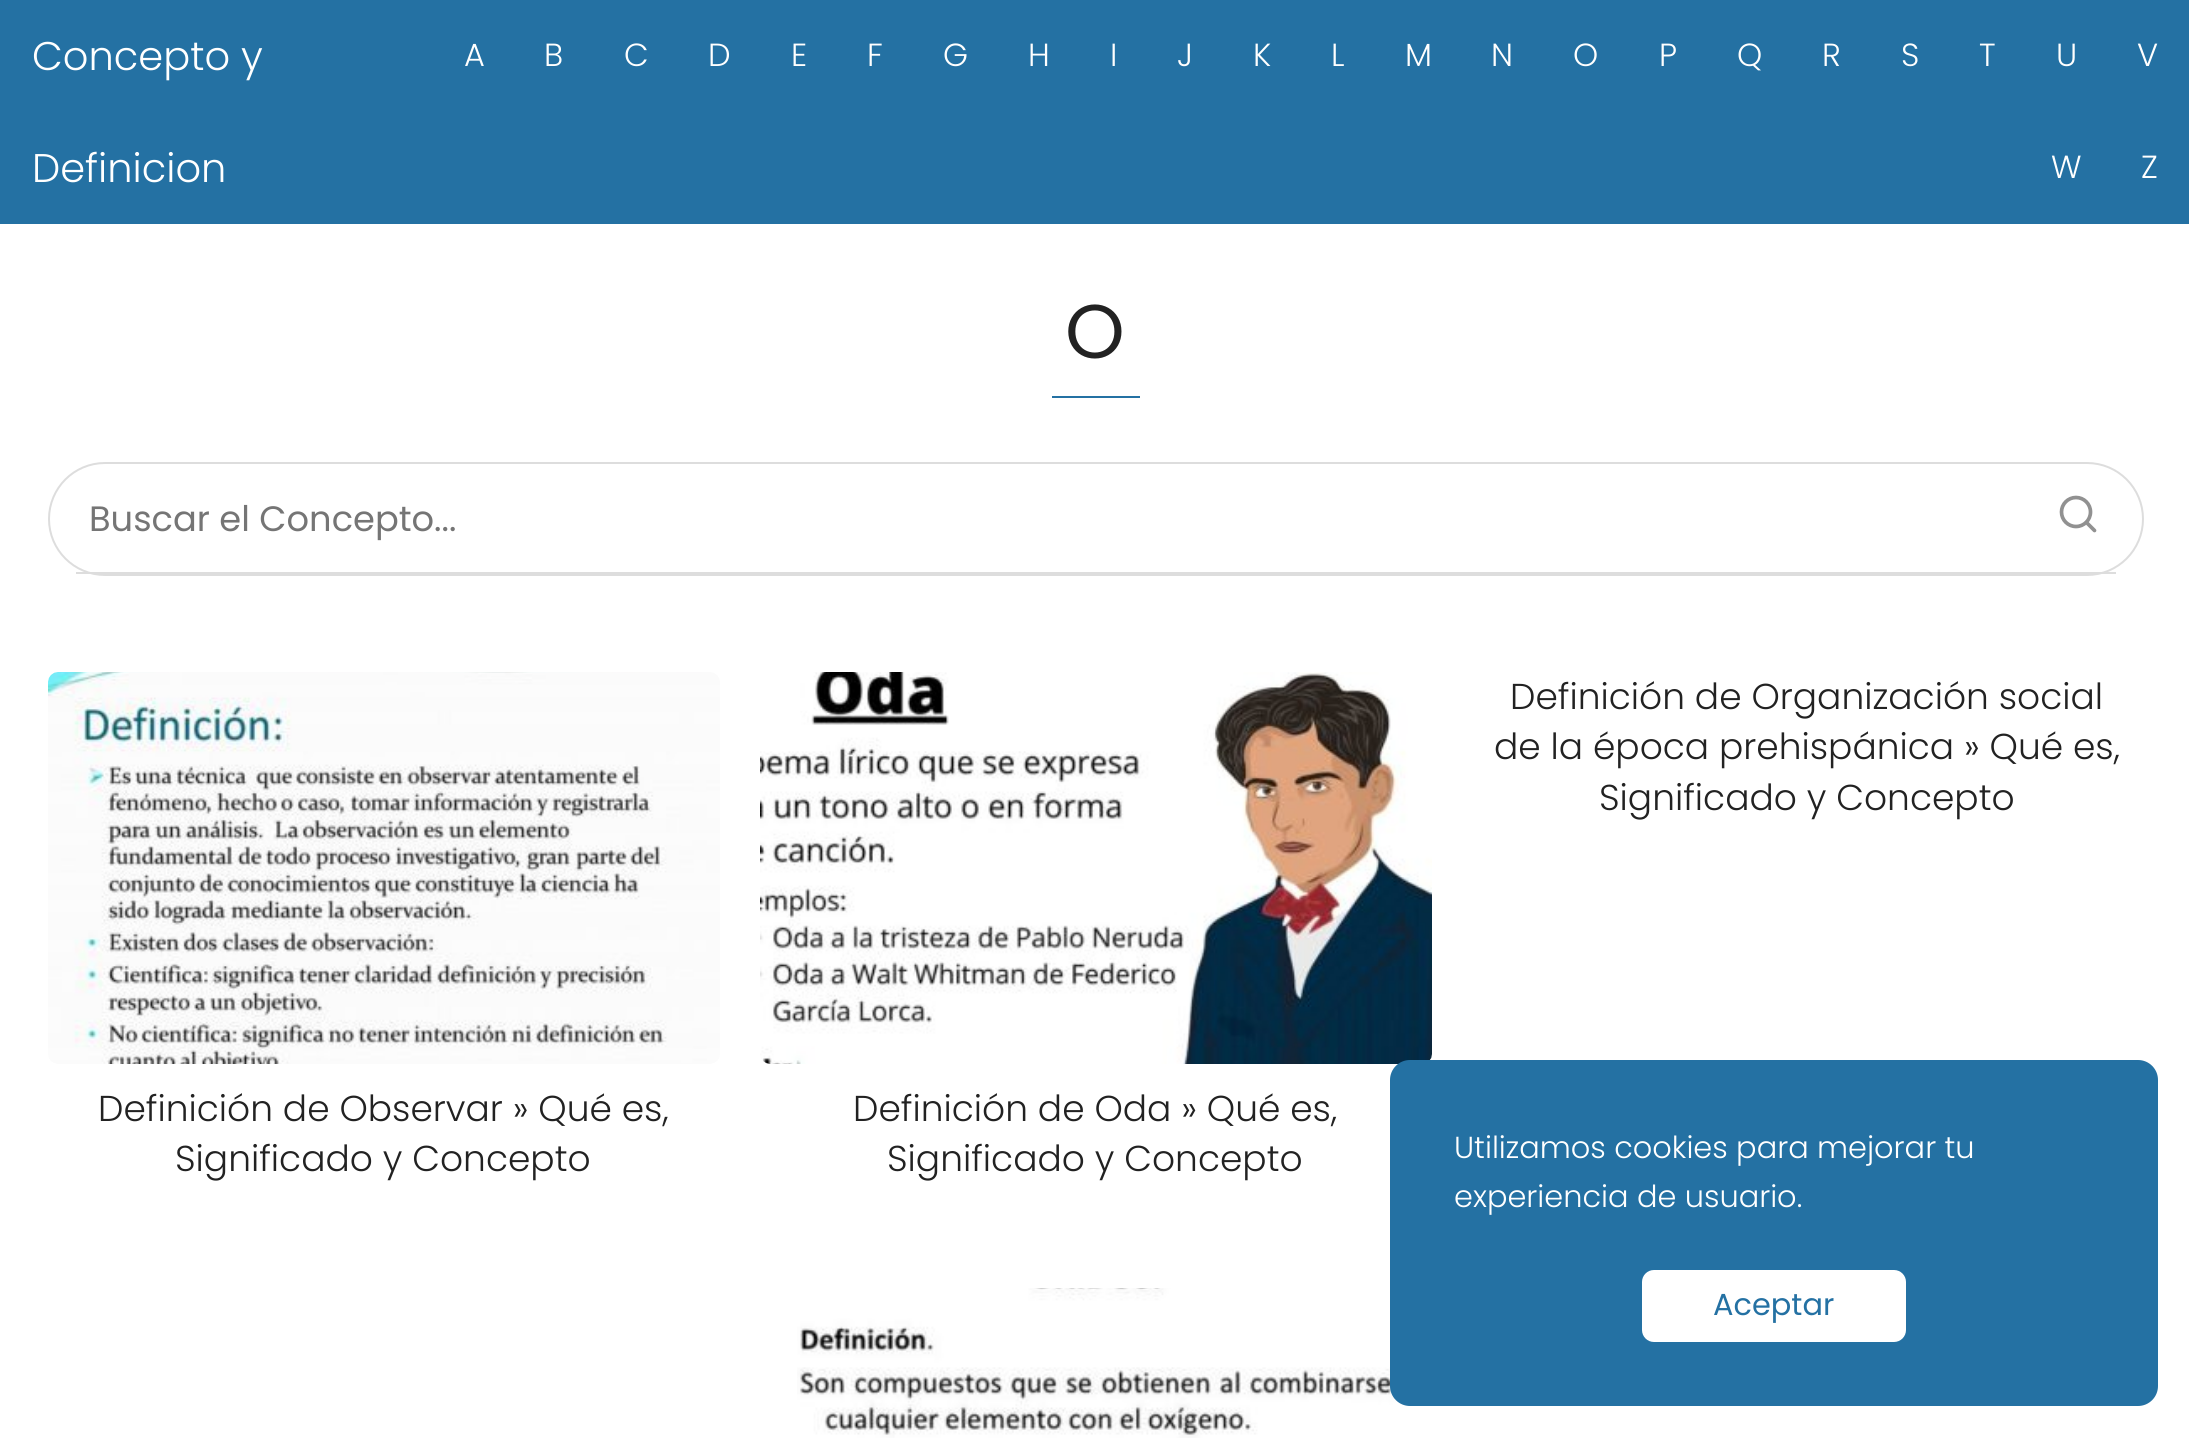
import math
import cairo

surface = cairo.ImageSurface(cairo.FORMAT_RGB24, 2189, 1438)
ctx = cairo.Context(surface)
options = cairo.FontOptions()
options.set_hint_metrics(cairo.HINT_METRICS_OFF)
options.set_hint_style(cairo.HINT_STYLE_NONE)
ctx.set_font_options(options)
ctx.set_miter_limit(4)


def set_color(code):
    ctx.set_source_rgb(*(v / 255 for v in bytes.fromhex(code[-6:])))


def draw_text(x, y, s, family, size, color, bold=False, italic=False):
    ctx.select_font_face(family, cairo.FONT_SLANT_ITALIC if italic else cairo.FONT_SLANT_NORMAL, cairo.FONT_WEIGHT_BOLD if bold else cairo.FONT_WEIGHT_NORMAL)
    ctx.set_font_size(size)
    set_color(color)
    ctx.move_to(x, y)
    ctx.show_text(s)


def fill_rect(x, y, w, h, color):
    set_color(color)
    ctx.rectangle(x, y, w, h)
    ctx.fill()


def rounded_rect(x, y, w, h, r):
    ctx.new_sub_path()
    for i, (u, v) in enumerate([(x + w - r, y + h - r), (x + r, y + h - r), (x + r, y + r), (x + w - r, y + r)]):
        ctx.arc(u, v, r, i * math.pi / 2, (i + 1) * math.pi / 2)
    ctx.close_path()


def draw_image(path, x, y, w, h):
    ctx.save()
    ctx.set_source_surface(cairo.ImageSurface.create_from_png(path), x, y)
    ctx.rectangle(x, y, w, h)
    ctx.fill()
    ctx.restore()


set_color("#ffffff")
ctx.paint()
fill_rect(0, 0, 2189, 224, "#2471a3")
draw_text(32, 70, "Concepto y", "Poppins Light", 40, "#ffffff")
draw_text(32, 182, "Definicion", "Poppins Light", 40, "#ffffff")
draw_text(464, 66, "A", "Poppins Light", 32, "#ffffff")
draw_text(544, 66, "B", "Poppins Light", 32, "#ffffff")
draw_text(624, 66, "C", "Poppins Light", 32, "#ffffff")
draw_text(708, 66, "D", "Poppins Light", 32, "#ffffff")
draw_text(791, 66, "E", "Poppins Light", 32, "#ffffff")
draw_text(867, 66, "F", "Poppins Light", 32, "#ffffff")
draw_text(943, 66, "G", "Poppins Light", 32, "#ffffff")
draw_text(1028, 66, "H", "Poppins Light", 32, "#ffffff")
draw_text(1110, 66, "I", "Poppins Light", 32, "#ffffff")
draw_text(1177, 66, "J", "Poppins Light", 32, "#ffffff")
draw_text(1253, 66, "K", "Poppins Light", 32, "#ffffff")
draw_text(1331, 66, "L", "Poppins Light", 32, "#ffffff")
draw_text(1405, 66, "M", "Poppins Light", 32, "#ffffff")
draw_text(1491, 66, "N", "Poppins Light", 32, "#ffffff")
draw_text(1573, 66, "O", "Poppins Light", 32, "#ffffff")
draw_text(1659, 66, "P", "Poppins Light", 32, "#ffffff")
draw_text(1737, 66, "Q", "Poppins Light", 32, "#ffffff")
draw_text(1822, 66, "R", "Poppins Light", 32, "#ffffff")
draw_text(1901, 66, "S", "Poppins Light", 32, "#ffffff")
draw_text(1979, 66, "T", "Poppins Light", 32, "#ffffff")
draw_text(2056, 66, "U", "Poppins Light", 32, "#ffffff")
draw_text(2137, 66, "V", "Poppins Light", 32, "#ffffff")
draw_text(2051, 178, "W", "Poppins Light", 32, "#ffffff")
draw_text(2141, 178, "Z", "Poppins Light", 32, "#ffffff")
draw_text(1065, 358, "O", "Poppins", 76, "#222222")
fill_rect(1052, 396, 88, 2, "#2471a3")
rounded_rect(49, 463, 2094, 112, 56)
set_color("#dddddd")
ctx.stroke()
fill_rect(76, 572, 2040, 2, "#dddddd")
draw_text(89, 531, "Buscar el Concepto...", "Poppins", 35.25, "#757575")
ctx.new_path()
ctx.arc(2076, 512, 14.5, 0, 2 * math.pi)
set_color("#919191")
ctx.set_line_width(3.7)
ctx.stroke()
ctx.new_path()
ctx.move_to(2094.5, 530.5)
ctx.line_to(2086.5, 522.5)
ctx.set_line_cap(cairo.LINE_CAP_ROUND)
ctx.set_line_join(cairo.LINE_JOIN_ROUND)
ctx.stroke()
draw_text(1510, 709, "Definición de Organización social", "Poppins Light", 36, "#222222")
draw_text(1494, 759, "de la época prehispánica » Qué es,", "Poppins Light", 36, "#222222")
draw_text(1599, 810, "Significado y Concepto", "Poppins Light", 36, "#222222")
draw_image("assets/img1.png", 48, 672, 672, 392)
draw_text(98, 1121, "Definición de Observar » Qué es,", "Poppins Light", 36, "#222222")
draw_text(175, 1171, "Significado y Concepto", "Poppins Light", 36, "#222222")
draw_image("assets/img2.png", 760, 672, 672, 392)
draw_text(853, 1121, "Definición de Oda » Qué es,", "Poppins Light", 36, "#222222")
draw_text(887, 1171, "Significado y Concepto", "Poppins Light", 36, "#222222")
draw_image("assets/img3.png", 797, 1288, 599, 150)
set_color("#2471a3")
rounded_rect(1390, 1060, 768, 346, 20)
ctx.fill()
draw_text(1454, 1158, "Utilizamos cookies para mejorar tu", "Poppins Light", 30.4, "#ffffff")
draw_text(1454, 1207, "experiencia de usuario.", "Poppins Light", 30.4, "#ffffff")
rounded_rect(1642, 1270, 264, 72, 12)
ctx.fill()
draw_text(1713, 1315, "Aceptar", "Poppins", 30.4, "#2471a3")
surface.write_to_png("output.png")
